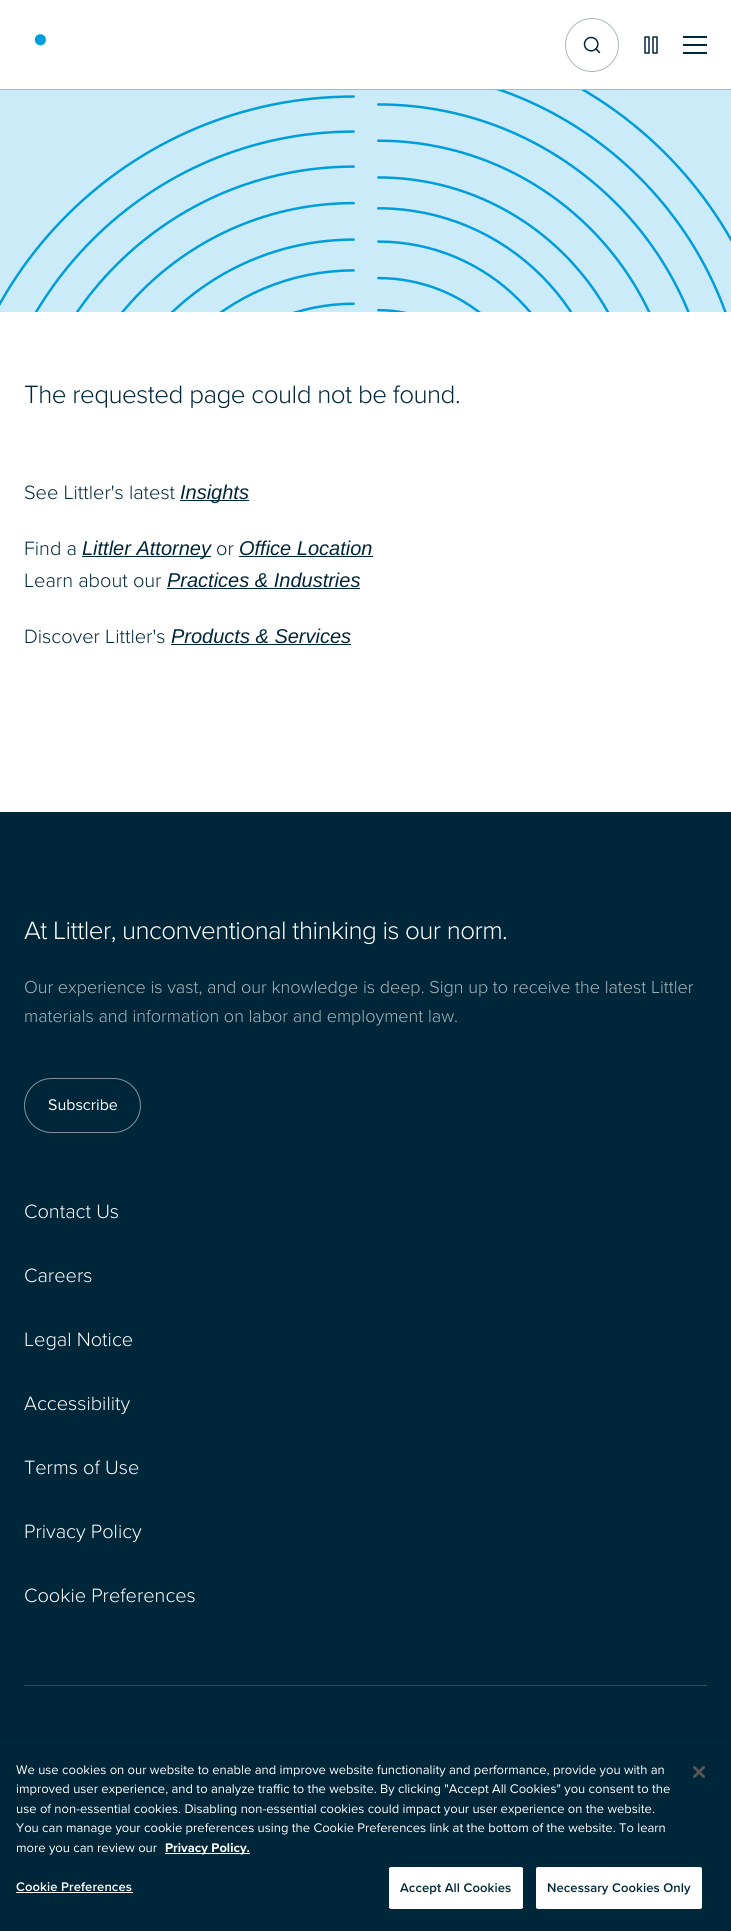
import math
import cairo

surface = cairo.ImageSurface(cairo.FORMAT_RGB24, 731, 1931)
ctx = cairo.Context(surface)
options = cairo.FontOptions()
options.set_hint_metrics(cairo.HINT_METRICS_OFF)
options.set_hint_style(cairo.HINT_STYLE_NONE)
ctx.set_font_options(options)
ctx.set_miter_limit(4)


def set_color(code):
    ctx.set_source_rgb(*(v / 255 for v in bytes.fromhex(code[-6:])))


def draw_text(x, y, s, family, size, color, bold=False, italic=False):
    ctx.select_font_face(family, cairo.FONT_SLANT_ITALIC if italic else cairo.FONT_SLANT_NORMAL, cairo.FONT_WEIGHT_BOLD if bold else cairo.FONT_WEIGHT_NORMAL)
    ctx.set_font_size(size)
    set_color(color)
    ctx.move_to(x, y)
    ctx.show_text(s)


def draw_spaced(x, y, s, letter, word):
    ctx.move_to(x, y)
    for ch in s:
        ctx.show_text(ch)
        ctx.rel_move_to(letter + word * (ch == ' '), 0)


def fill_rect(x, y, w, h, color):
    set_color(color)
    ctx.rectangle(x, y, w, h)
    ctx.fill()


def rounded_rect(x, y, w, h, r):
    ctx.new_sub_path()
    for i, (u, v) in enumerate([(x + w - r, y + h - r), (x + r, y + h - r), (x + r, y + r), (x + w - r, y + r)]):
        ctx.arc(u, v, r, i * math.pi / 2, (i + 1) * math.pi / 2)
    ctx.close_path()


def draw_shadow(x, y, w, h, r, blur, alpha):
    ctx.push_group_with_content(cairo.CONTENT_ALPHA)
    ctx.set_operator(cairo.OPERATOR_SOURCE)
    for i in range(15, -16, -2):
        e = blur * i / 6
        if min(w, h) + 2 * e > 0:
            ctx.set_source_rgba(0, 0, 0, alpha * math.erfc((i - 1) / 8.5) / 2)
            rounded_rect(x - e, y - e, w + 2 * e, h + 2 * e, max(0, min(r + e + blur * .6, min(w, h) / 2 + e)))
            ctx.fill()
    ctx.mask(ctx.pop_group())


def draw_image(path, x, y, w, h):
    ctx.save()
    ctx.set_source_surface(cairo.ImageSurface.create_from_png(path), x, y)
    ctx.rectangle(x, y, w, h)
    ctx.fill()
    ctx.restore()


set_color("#ffffff")
ctx.paint()
draw_image("assets/img1.png", 34, 34, 12, 12)
draw_image("assets/img2.png", 583, 36, 18, 18)
ctx.arc(592, 45, 26.5, 0, 2 * math.pi)
set_color("#aab7bd")
ctx.set_line_width(1)
ctx.stroke()
draw_image("assets/img3.png", 644, 36, 14, 18)
fill_rect(683, 36, 24, 2, "#00263a")
fill_rect(683, 44, 24, 2, "#00263a")
fill_rect(683, 52, 24, 2, "#00263a")
fill_rect(0, 89, 731, 1, "#aab7bd")
fill_rect(0, 90, 731, 222, "#ccebf8")
draw_image("assets/img4.png", 0, 90, 731, 222)
ctx.select_font_face("Proxima Nova Light")
ctx.set_font_size(26)
set_color("#00263a")
draw_spaced(24, 403, "The requested page could not be found.", -0.5, 0)
draw_text(24, 499, "See Littler's latest", "Proxima Nova Light", 20, "#00263a")
fill_rect(180, 500, 69, 1, "#00263a")
draw_text(180, 499, "Insights", "Liberation Sans", 20, "#00263a", italic=True)
draw_text(24, 555, "Find a", "Proxima Nova Light", 20, "#00263a")
fill_rect(82, 556, 129, 1, "#00263a")
draw_text(82, 555, "Littler Attorney", "Liberation Sans", 20, "#00263a", italic=True)
draw_text(216, 555, "or", "Proxima Nova Light", 20, "#00263a")
draw_text(239, 555, "Office Location", "Liberation Sans", 20, "#00263a", italic=True)
fill_rect(239, 556, 134, 1, "#00263a")
draw_text(24, 587, "Learn about our", "Proxima Nova Light", 20, "#00263a")
draw_text(167, 587, "Practices & Industries", "Liberation Sans", 20, "#00263a", italic=True)
fill_rect(167, 588, 193, 1, "#00263a")
draw_text(24, 643, "Discover Littler's", "Proxima Nova Light", 20, "#00263a")
draw_text(171, 643, "Products & Services", "Liberation Sans", 20, "#00263a", italic=True)
fill_rect(171, 644, 180, 1, "#00263a")
fill_rect(0, 812, 731, 928, "#00263a")
ctx.select_font_face("Proxima Nova Light")
ctx.set_font_size(26)
set_color("#ffffff")
draw_spaced(24, 939, "At Littler, unconventional thinking is our norm.", -0.55, 0)
draw_text(24, 993, "Our experience is vast, and our knowledge is deep. Sign up to receive the latest Littler", "Proxima Nova Light", 18, "#aab7bd")
draw_text(24, 1022, "materials and information on labor and employment law.", "Proxima Nova Light", 18, "#aab7bd")
rounded_rect(24.5, 1078.5, 116, 54, 27)
set_color("#80939d")
ctx.stroke()
draw_text(48, 1110, "Subscribe", "Proxima Nova", 16, "#ffffff")
draw_text(24, 1218, "Contact Us", "Proxima Nova Light", 20, "#ffffff")
draw_text(24, 1282, "Careers", "Proxima Nova Light", 20, "#ffffff")
draw_text(24, 1346, "Legal Notice", "Proxima Nova Light", 20, "#ffffff")
draw_text(24, 1410, "Accessibility", "Proxima Nova Light", 20, "#ffffff")
draw_text(24, 1474, "Terms of Use", "Proxima Nova Light", 20, "#ffffff")
draw_text(24, 1538, "Privacy Policy", "Proxima Nova Light", 20, "#ffffff")
draw_text(24, 1602, "Cookie Preferences", "Proxima Nova Light", 20, "#ffffff")
fill_rect(24, 1685, 683, 1, "#2b4a5b")
set_color("#000000")
draw_shadow(0, 1740, 731, 191, 0, 9, 0.2)
fill_rect(0, 1740, 731, 191, "#00263a")
draw_text(16, 1774, "We use cookies on our website to enable and improve website functionality and performance, provide you with an", "Proxima Nova", 13, "#ffffff")
draw_text(16, 1793, "improved user experience, and to analyze traffic to the website. By clicking \"Accept All Cookies\" you consent to the", "Proxima Nova", 13, "#ffffff")
draw_text(16, 1813, "use of non-essential cookies. Disabling non-essential cookies could impact your user experience on the website.", "Proxima Nova", 13, "#ffffff")
draw_text(16, 1832, "You can manage your cookie preferences using the Cookie Preferences link at the bottom of the website. To learn", "Proxima Nova", 13, "#ffffff")
draw_text(16, 1852, "more you can review our", "Proxima Nova", 13, "#ffffff")
fill_rect(165, 1853, 85, 1, "#ffffff")
draw_text(165, 1852, "Privacy Policy.", "Proxima Nova", 13, "#ffffff", bold=True)
ctx.select_font_face("Proxima Nova SemiBold")
draw_spaced(16, 1891, "Cookie Preferences", 0.1, 0)
fill_rect(16, 1892, 117, 1, "#ffffff")
rounded_rect(389.5, 1867.5, 133, 41, 1.5)
ctx.fill_preserve()
ctx.stroke()
set_color("#00263a")
draw_spaced(400, 1892, "Accept All Cookies", 0.1, 0)
set_color("#ffffff")
rounded_rect(536.5, 1867.5, 165, 41, 1.5)
ctx.fill_preserve()
ctx.stroke()
set_color("#00263a")
draw_spaced(547, 1892, "Necessary Cookies Only", 0.1, 0)
draw_image("assets/img5.png", 693, 1766, 12, 12)
surface.write_to_png("output.png")
